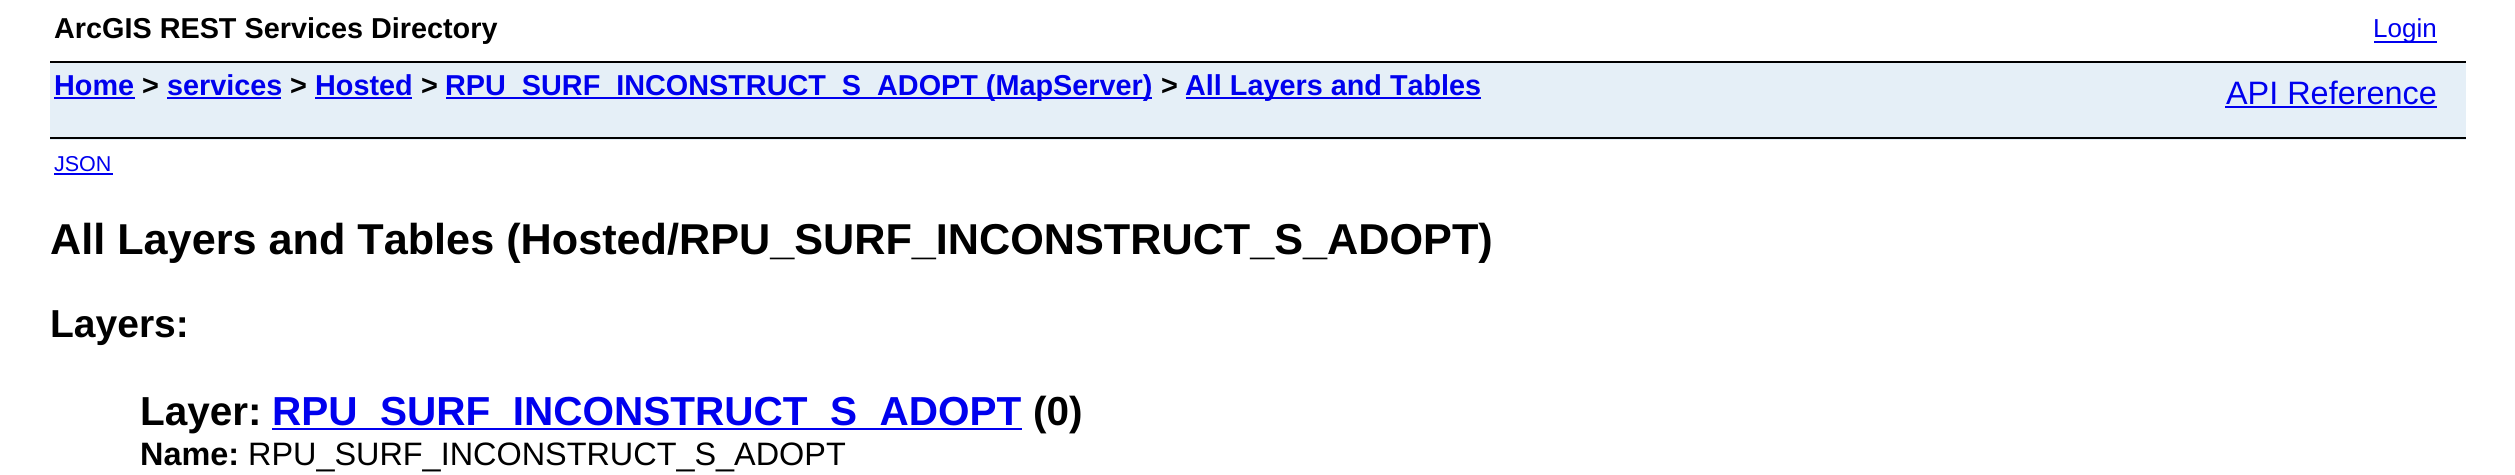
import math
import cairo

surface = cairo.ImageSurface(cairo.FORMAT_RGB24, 2515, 475)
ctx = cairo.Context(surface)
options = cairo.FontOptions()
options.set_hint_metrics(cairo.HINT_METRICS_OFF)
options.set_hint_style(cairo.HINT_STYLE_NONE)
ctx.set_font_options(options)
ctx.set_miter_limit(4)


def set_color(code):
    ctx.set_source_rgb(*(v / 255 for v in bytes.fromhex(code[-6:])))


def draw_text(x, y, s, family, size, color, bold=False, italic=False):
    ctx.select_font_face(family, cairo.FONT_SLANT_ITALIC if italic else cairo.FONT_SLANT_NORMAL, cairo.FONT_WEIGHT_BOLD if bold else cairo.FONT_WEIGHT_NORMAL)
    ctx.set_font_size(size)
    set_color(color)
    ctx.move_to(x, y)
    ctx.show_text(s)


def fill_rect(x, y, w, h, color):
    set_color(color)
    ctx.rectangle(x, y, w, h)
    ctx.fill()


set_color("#ffffff")
ctx.paint()
draw_text(54, 38, "ArcGIS REST Services Directory", "Liberation Sans", 28.8, "#000000", bold=True)
fill_rect(2374, 41, 63, 2, "#0000ee")
draw_text(2373, 37, "Login", "Liberation Sans", 26, "#0000ee")
fill_rect(50, 63, 2416, 77, "#e5eff7")
fill_rect(50, 61, 2416, 2, "#000000")
fill_rect(50, 137, 2416, 2, "#000000")
draw_text(54, 95, "Home", "Liberation Sans", 28.8, "#0000ee", bold=True)
fill_rect(54, 97, 81, 2, "#0000ee")
draw_text(142, 95, ">", "Liberation Sans", 28.8, "#000000", bold=True)
draw_text(167, 95, "services", "Liberation Sans", 28.8, "#0000ee", bold=True)
fill_rect(167, 97, 114, 2, "#0000ee")
draw_text(290, 95, ">", "Liberation Sans", 28.8, "#000000", bold=True)
draw_text(315, 95, "Hosted", "Liberation Sans", 28.8, "#0000ee", bold=True)
fill_rect(315, 97, 97, 2, "#0000ee")
draw_text(421, 95, ">", "Liberation Sans", 28.8, "#000000", bold=True)
fill_rect(446, 97, 706, 2, "#0000ee")
draw_text(445, 95, "RPU_SURF_INCONSTRUCT_S_ADOPT (MapServer)", "Liberation Sans", 28.8, "#0000ee", bold=True)
draw_text(1161, 95, ">", "Liberation Sans", 28.8, "#000000", bold=True)
fill_rect(1186, 97, 295, 2, "#0000ee")
draw_text(1185, 95, "All Layers and Tables", "Liberation Sans", 28.8, "#0000ee", bold=True)
draw_text(2226, 104, "API Reference", "Liberation Sans", 32.4, "#0000ee")
fill_rect(2225, 106, 212, 2, "#0000ee")
draw_text(54, 171, "JSON", "Liberation Sans", 21.5, "#0000ee")
fill_rect(54, 173, 59, 2, "#0000ee")
draw_text(50, 254, "All Layers and Tables (Hosted/RPU_SURF_INCONSTRUCT_S_ADOPT)", "Liberation Sans", 43.2, "#000000", bold=True)
draw_text(50, 337, "Layers:", "Liberation Sans", 39, "#000000", bold=True)
draw_text(140, 425, "Layer:", "Liberation Sans", 40.5, "#000000", bold=True)
fill_rect(272, 428, 750, 2, "#0000ee")
draw_text(272, 425, "RPU_SURF_INCONSTRUCT_S_ADOPT", "Liberation Sans", 40.5, "#0000ee", bold=True)
draw_text(1033, 425, "(0)", "Liberation Sans", 40.5, "#000000", bold=True)
draw_text(140, 465, "Name:", "Liberation Sans", 32.4, "#000000", bold=True)
draw_text(248, 465, "RPU_SURF_INCONSTRUCT_S_ADOPT", "Liberation Sans", 32.4, "#000000")
surface.write_to_png("output.png")
